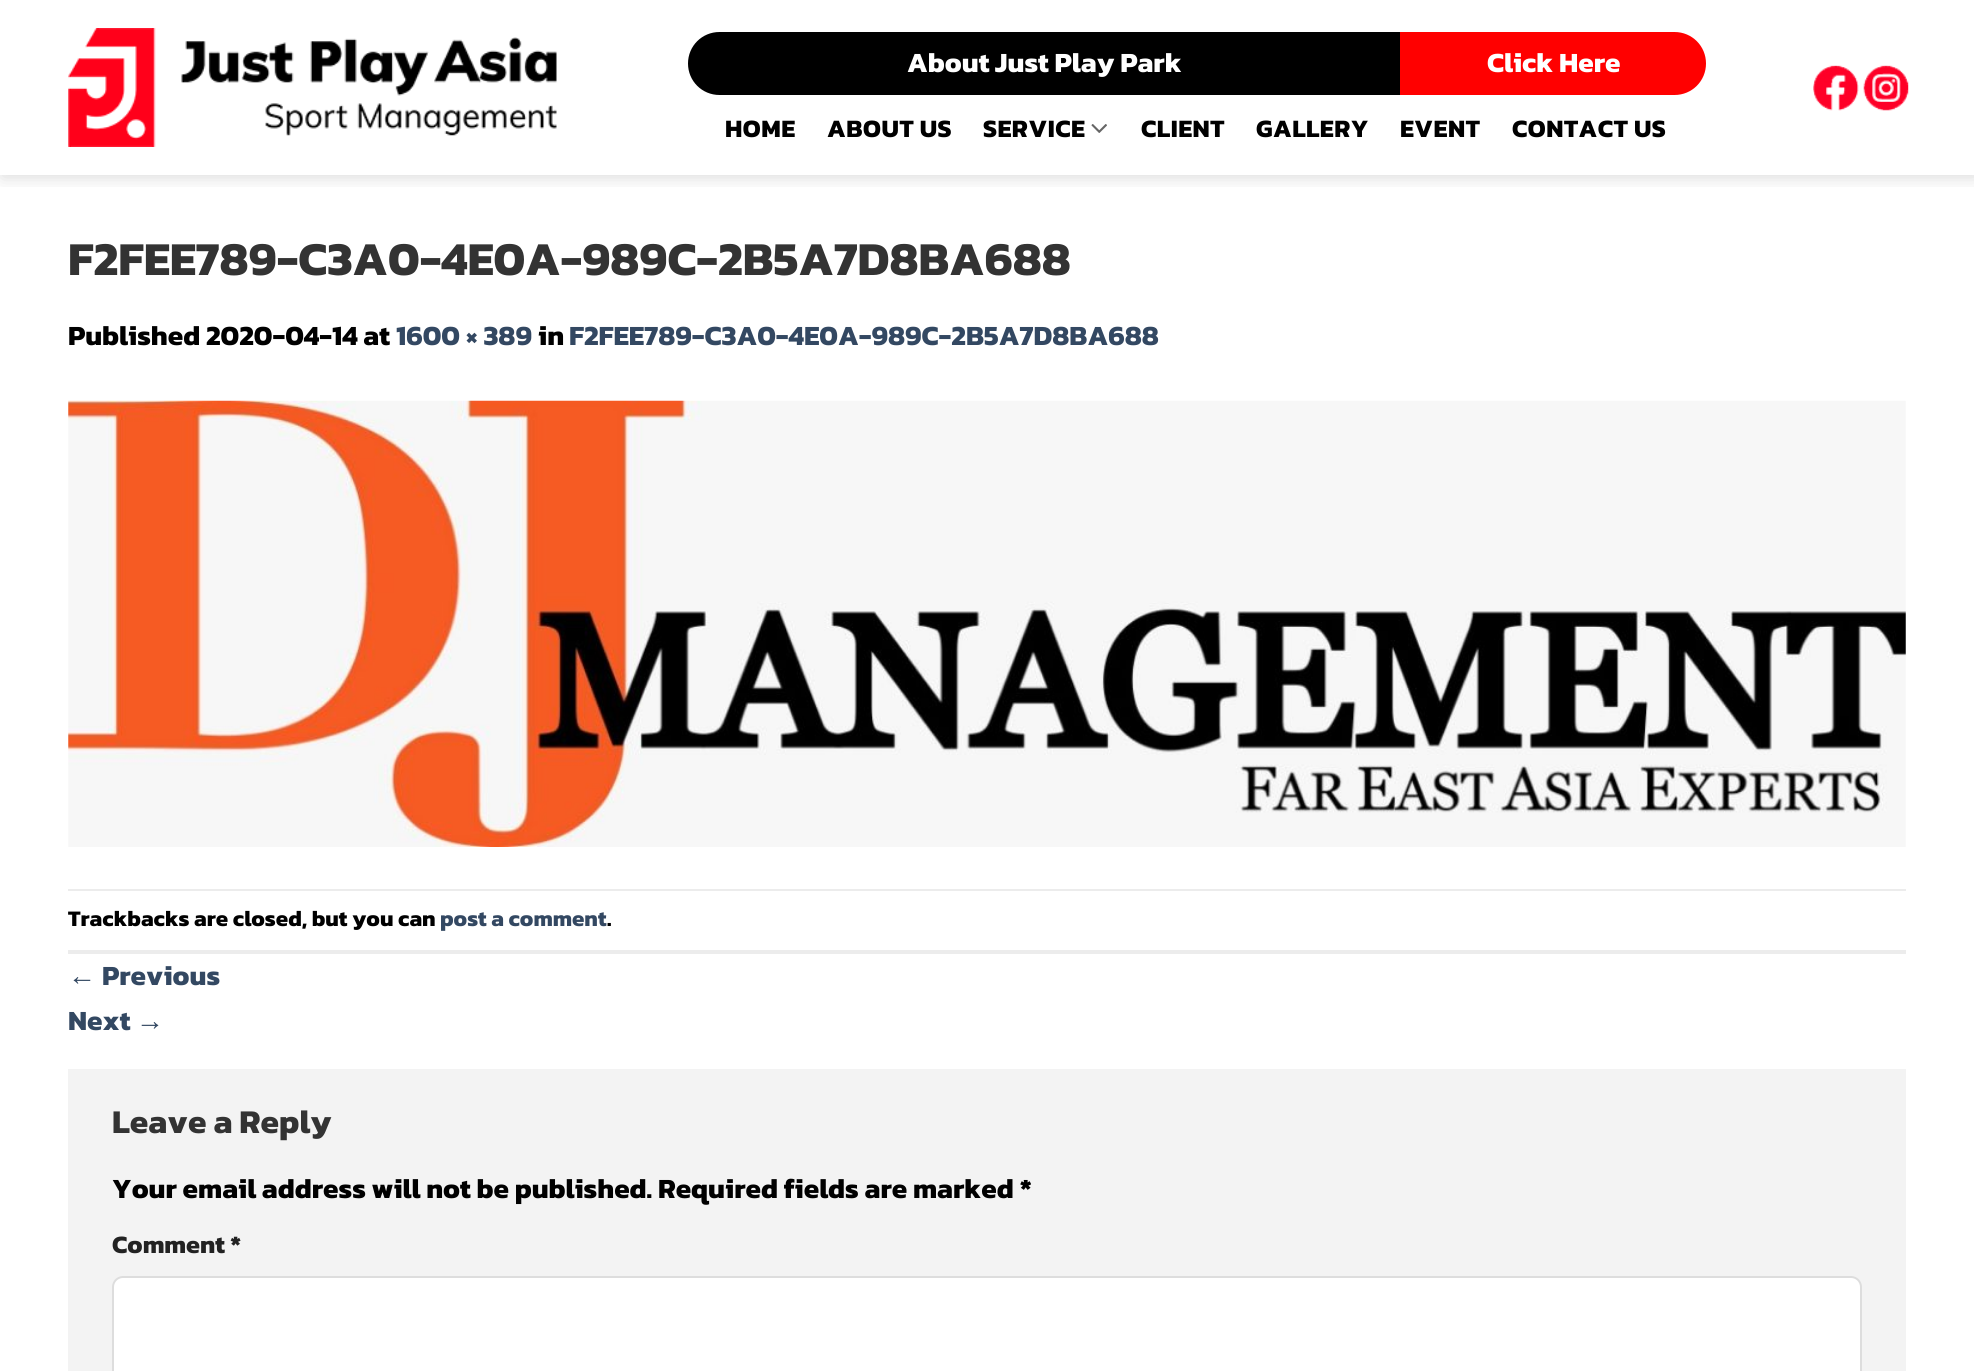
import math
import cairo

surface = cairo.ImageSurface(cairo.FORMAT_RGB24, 1974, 1371)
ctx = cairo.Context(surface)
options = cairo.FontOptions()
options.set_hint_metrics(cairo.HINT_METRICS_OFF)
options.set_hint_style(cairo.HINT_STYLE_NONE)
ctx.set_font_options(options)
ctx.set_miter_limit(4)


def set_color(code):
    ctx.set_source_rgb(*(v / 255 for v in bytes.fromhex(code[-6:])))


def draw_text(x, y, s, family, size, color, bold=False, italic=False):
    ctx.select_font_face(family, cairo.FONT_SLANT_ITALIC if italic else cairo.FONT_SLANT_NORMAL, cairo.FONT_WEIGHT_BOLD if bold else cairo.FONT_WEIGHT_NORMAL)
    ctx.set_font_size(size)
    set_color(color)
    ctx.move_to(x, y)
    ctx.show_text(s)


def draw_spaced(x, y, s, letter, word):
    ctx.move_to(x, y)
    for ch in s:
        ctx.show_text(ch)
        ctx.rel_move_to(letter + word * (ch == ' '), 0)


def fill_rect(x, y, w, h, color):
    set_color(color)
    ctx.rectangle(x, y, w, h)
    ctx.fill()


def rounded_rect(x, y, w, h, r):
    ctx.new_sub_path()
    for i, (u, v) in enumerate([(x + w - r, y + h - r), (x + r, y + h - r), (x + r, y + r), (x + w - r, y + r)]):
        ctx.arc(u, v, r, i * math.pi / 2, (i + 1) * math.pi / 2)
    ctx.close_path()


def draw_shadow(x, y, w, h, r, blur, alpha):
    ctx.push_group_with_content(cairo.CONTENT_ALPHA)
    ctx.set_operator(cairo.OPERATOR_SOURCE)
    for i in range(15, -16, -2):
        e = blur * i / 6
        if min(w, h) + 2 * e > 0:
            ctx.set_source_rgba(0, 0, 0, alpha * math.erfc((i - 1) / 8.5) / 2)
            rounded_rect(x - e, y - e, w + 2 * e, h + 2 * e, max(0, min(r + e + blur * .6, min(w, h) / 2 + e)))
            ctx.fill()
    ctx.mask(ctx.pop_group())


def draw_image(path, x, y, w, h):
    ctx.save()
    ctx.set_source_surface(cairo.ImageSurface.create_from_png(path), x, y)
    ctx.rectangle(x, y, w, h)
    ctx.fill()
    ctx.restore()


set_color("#ffffff")
ctx.paint()
ctx.save()
ctx.rectangle(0, 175, 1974, 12)
ctx.clip()
set_color("#000000")
draw_shadow(2, 2, 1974, 175, 0, 9, 0.15)
ctx.restore()
draw_image("assets/img1.png", 68, 28, 489, 119)
set_color("#000000")
ctx.new_path()
ctx.move_to(719.5, 32)
ctx.line_to(1400, 32)
ctx.line_to(1400, 95)
ctx.line_to(719.5, 95)
ctx.curve_to(702, 95, 688, 81, 688, 63.5)
ctx.curve_to(688, 46, 702, 32, 719.5, 32)
ctx.close_path()
ctx.fill()
draw_text(907, 72, "About Just Play Park", "Kanit", 28, "#ffffff", bold=True)
set_color("#ff0000")
ctx.new_path()
ctx.move_to(1400, 32)
ctx.line_to(1674.5, 32)
ctx.curve_to(1692, 32, 1706, 46, 1706, 63.5)
ctx.curve_to(1706, 81, 1692, 95, 1674.5, 95)
ctx.line_to(1400, 95)
ctx.close_path()
ctx.fill()
draw_text(1487, 72, "Click Here", "Kanit", 28, "#ffffff", bold=True)
ctx.set_font_size(25.25)
set_color("#000000")
draw_spaced(725, 137, "HOME", 0.5, 0)
draw_spaced(827, 137, "ABOUT US", 0.5, 0)
draw_spaced(983, 137, "SERVICE", 0.5, 0)
draw_image("assets/img2.png", 1091, 124, 16, 9)
draw_spaced(1141, 137, "CLIENT", 0.5, 0)
draw_spaced(1256, 137, "GALLERY", 0.5, 0)
draw_spaced(1400, 137, "EVENT", 0.5, 0)
draw_spaced(1512, 137, "CONTACT US", 0.5, 0)
draw_image("assets/img3.png", 1813, 65, 46, 46)
draw_image("assets/img4.png", 1863, 65, 46, 46)
draw_text(68, 275, "F2FEE789-C3A0-4E0A-989C-2B5A7D8BA688", "Kanit", 47.6, "#333333", bold=True)
draw_text(68, 345, "Published 2020-04-14 at", "Kanit", 28, "#000000", bold=True)
draw_text(396, 345, "1600 × 389", "Kanit", 28, "#334862", bold=True)
draw_text(538, 345, "in", "Kanit", 28, "#000000", bold=True)
draw_text(569, 345, "F2FEE789-C3A0-4E0A-989C-2B5A7D8BA688", "Kanit", 28, "#334862", bold=True)
draw_image("assets/img5.png", 68, 400, 1838, 447)
fill_rect(68, 889, 1838, 2, "#ececec")
fill_rect(68, 950, 1838, 4, "#ececec")
draw_text(68, 926, "Trackbacks are closed, but you can", "Kanit", 22.4, "#000000", bold=True)
draw_text(440, 926, "post a comment", "Kanit", 22.4, "#334862", bold=True)
draw_text(607, 926, ".", "Kanit", 22.4, "#000000", bold=True)
draw_text(68, 985, "←", "Liberation Sans", 28, "#334862")
draw_text(102, 985, "Previous", "Kanit", 28, "#334862", bold=True)
draw_text(68, 1030, "Next", "Kanit", 28, "#334862", bold=True)
draw_text(136, 1030, "→", "Liberation Sans", 28, "#334862")
fill_rect(68, 1069, 1838, 302, "#f3f3f3")
draw_text(112, 1133, "Leave a Reply", "Kanit", 33.5, "#333333", bold=True)
draw_text(112, 1198, "Your email address will not be published. Required fields are marked *", "Kanit", 28, "#000000", bold=True)
draw_text(112, 1253, "Comment *", "Kanit", 25.25, "#222222", bold=True)
set_color("#ffffff")
rounded_rect(113, 1277, 1748, 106, 10)
ctx.fill_preserve()
set_color("#dddddd")
ctx.stroke()
surface.write_to_png("output.png")
